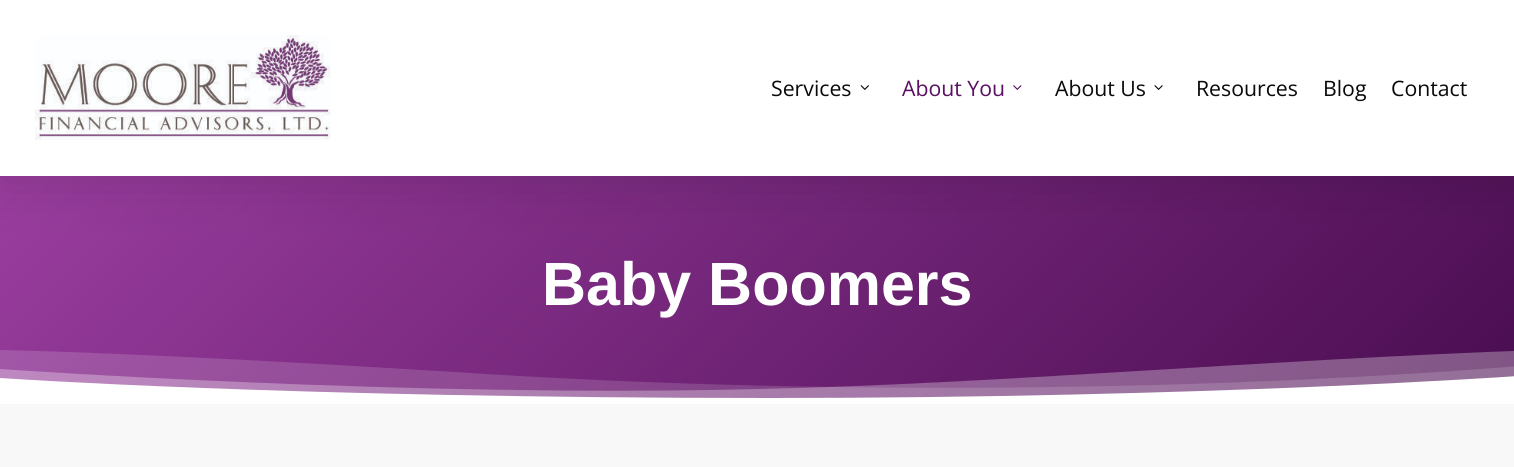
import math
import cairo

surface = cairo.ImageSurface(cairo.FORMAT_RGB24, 1514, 467)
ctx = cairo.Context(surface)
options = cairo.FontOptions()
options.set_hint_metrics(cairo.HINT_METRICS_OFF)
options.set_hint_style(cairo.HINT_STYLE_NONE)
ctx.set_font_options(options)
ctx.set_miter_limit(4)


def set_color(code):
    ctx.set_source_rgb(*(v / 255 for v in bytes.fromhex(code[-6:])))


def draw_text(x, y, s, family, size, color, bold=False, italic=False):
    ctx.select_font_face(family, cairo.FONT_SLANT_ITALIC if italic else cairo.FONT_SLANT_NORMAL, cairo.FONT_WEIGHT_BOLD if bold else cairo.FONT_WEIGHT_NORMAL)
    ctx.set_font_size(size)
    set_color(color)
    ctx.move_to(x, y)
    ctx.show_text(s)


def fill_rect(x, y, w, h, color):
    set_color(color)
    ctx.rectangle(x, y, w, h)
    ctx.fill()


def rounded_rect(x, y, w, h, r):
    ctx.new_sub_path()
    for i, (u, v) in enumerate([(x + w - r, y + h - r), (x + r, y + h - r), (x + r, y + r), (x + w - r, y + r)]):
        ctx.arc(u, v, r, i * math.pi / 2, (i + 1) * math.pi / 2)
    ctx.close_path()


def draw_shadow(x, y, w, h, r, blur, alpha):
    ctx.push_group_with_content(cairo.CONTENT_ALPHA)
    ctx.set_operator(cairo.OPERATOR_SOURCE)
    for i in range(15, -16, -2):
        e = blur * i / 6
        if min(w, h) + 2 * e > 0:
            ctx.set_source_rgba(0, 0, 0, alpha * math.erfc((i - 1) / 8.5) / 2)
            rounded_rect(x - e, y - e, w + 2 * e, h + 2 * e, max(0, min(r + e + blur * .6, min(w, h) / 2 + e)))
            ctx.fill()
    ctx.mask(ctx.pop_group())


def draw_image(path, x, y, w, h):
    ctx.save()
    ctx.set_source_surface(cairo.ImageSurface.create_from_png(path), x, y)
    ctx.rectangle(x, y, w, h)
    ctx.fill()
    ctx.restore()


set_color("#f8f8f8")
ctx.paint()
gradient = cairo.LinearGradient(322, -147, 1193, 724)
gradient.add_color_stop_rgba(0, 0.604, 0.239, 0.624, 1)
gradient.add_color_stop_rgba(1, 0.29, 0.051, 0.314, 1)
ctx.set_source(gradient)
ctx.rectangle(0, 176, 1514, 222)
ctx.fill()
set_color("#000000")
draw_shadow(0, 4, 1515, 176, 0, 28, 0.15)
fill_rect(0, 0, 1514, 176, "#ffffff")
draw_image("assets/img1.png", 35, 35, 296, 105)
draw_text(771, 96, "Services", "Open Sans", 21.25, "#0a0a0a")
draw_image("assets/img2.png", 860, 85, 9, 5)
draw_text(902, 96, "About You", "Open Sans", 21.25, "#5a0f62")
draw_image("assets/img3.png", 1013, 85, 9, 5)
draw_text(1055, 96, "About Us", "Open Sans", 21.25, "#0a0a0a")
draw_image("assets/img4.png", 1154, 85, 9, 5)
draw_text(1196, 96, "Resources", "Open Sans", 21.25, "#0a0a0a")
draw_text(1323, 96, "Blog", "Open Sans", 21.25, "#0a0a0a")
draw_text(1391, 96, "Contact", "Open Sans", 21.25, "#0a0a0a")
draw_text(542, 305, "Baby Boomers", "Liberation Sans", 61, "#ffffff", bold=True)
ctx.save()
ctx.rectangle(0, 341, 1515, 63)
ctx.clip()
ctx.set_source_rgba(1, 1, 1, 0.15)
ctx.new_path()
ctx.move_to(0, 350)
ctx.curve_to(0, 350, 134, 352, 454, 372)
ctx.curve_to(848, 398, 1233, 389, 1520, 366)
ctx.line_to(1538, 384)
ctx.line_to(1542, 406)
ctx.line_to(0, 406)
ctx.close_path()
ctx.fill()
ctx.restore()
ctx.set_source_rgba(1, 1, 1, 0.3)
ctx.new_path()
ctx.move_to(0, 369)
ctx.curve_to(0, 369, 411, 398, 758, 389)
ctx.curve_to(995, 384, 1257, 360, 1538, 350)
ctx.line_to(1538, 404)
ctx.line_to(0, 404)
ctx.close_path()
ctx.fill()
set_color("#ffffff")
ctx.new_path()
ctx.move_to(0, 378)
ctx.curve_to(0, 378, 285, 398, 770, 398)
ctx.curve_to(1209, 398, 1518, 376, 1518, 376)
ctx.line_to(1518, 404)
ctx.line_to(0, 404)
ctx.close_path()
ctx.fill()
surface.write_to_png("output.png")
